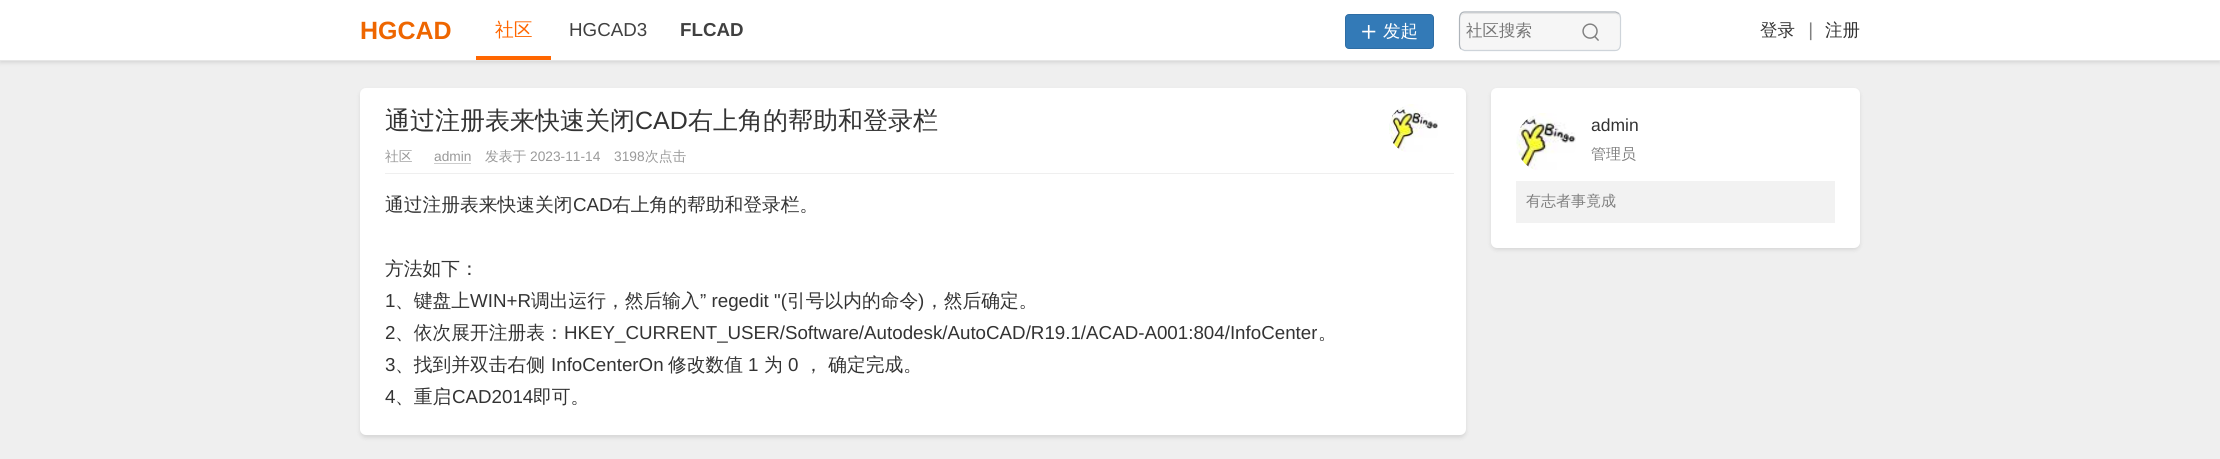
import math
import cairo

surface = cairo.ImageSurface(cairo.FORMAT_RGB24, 2220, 459)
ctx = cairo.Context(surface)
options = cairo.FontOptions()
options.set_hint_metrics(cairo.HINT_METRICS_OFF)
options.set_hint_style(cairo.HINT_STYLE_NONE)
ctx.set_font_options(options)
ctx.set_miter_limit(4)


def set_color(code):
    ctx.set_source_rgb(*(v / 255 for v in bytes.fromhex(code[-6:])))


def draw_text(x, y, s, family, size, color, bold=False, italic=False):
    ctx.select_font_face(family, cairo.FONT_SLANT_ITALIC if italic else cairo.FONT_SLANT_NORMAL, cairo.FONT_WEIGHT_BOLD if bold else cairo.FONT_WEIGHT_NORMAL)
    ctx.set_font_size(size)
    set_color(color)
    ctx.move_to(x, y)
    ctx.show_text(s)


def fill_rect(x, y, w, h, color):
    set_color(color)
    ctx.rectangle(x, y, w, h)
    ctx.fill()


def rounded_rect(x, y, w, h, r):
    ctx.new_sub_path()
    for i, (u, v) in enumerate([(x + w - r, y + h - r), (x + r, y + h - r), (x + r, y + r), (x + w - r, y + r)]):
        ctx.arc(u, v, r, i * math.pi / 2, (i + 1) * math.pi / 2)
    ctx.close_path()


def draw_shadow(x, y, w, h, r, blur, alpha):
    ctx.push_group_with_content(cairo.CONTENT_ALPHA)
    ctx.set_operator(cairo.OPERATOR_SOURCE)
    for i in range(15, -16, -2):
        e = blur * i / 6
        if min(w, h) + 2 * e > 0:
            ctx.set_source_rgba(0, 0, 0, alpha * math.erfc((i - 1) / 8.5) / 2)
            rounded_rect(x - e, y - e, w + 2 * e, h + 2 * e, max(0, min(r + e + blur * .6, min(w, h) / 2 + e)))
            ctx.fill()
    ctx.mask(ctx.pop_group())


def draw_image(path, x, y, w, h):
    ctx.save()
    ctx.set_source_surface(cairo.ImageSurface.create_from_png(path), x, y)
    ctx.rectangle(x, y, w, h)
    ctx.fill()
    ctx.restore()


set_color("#efefef")
ctx.paint()
set_color("#000000")
draw_shadow(0, 1, 2220, 62, 0, 2, 0.1)
fill_rect(0, 0, 2220, 60, "#ffffff")
fill_rect(0, 60, 2220, 1, "#e6e6e6")
draw_text(360, 39, "HGCAD", "Liberation Sans", 25, "#ee6600", bold=True)
fill_rect(476, 56, 75, 4, "#ff6600")
draw_text(495, 36, "社区", "WenQuanYi Zen Hei Medium", 18.75, "#ff6600")
draw_text(569, 36, "HGCAD3", "Liberation Sans", 18.75, "#404040")
draw_text(680, 36, "FLCAD", "Liberation Sans", 18.75, "#404040", bold=True)
set_color("#337ab7")
rounded_rect(1345.5, 14.5, 88, 34, 3.5)
ctx.fill_preserve()
set_color("#2e6da4")
ctx.set_line_width(1)
ctx.stroke()
draw_image("assets/img1.png", 1362, 25, 14, 14)
draw_text(1383, 37, "发起", "WenQuanYi Zen Hei Medium", 17.5, "#ffffff")
set_color("#f6f6f6")
rounded_rect(1459, 11, 162, 40, 6)
ctx.fill()
set_color("#e4e4e4")
ctx.new_path()
ctx.move_to(1465, 14)
ctx.line_to(1615, 14)
ctx.curve_to(1618, 14, 1620, 16, 1620, 19)
ctx.line_to(1620, 18)
ctx.curve_to(1620, 15, 1618, 13, 1615, 13)
ctx.line_to(1465, 13)
ctx.curve_to(1462, 13, 1460, 15, 1460, 18)
ctx.line_to(1460, 19)
ctx.curve_to(1460, 16, 1462, 14, 1465, 14)
ctx.close_path()
ctx.fill()
ctx.new_path()
ctx.move_to(1619, 13.5)
ctx.curve_to(1621, 16, 1620.5, 19, 1620.5, 22)
ctx.line_to(1620.5, 40.5)
ctx.curve_to(1620.5, 44.5, 1621, 50.5, 1615, 50.5)
ctx.line_to(1464.5, 50.5)
ctx.line_to(1461, 49)
set_color("#ced4da")
ctx.set_line_width(1.2)
ctx.stroke()
ctx.new_path()
ctx.move_to(1461, 49)
ctx.curve_to(1459, 46.5, 1459.5, 43.5, 1459.5, 40.5)
ctx.line_to(1459.5, 22)
ctx.curve_to(1459.5, 18, 1459, 12, 1465, 12)
ctx.line_to(1615.5, 12)
ctx.line_to(1619, 13.5)
set_color("#aeb4ba")
ctx.stroke()
draw_text(1466, 36, "社区搜索", "WenQuanYi Zen Hei Medium", 16.5, "#757575")
draw_image("assets/img2.png", 1582, 23, 17, 18)
draw_text(1760, 36, "登录", "WenQuanYi Zen Hei Medium", 17.5, "#333333")
draw_text(1808, 36, "|", "Liberation Sans", 18.75, "#808080", italic=True)
draw_text(1825, 36, "注册", "WenQuanYi Zen Hei Medium", 17.5, "#333333")
set_color("#000000")
draw_shadow(360, 90, 1106, 348, 6, 2, 0.1)
set_color("#ffffff")
rounded_rect(360, 88, 1106, 347, 6)
ctx.fill()
draw_text(385, 129, "通过注册表来快速关闭", "WenQuanYi Zen Hei Medium", 25, "#333333")
draw_text(635, 129, "CAD", "Liberation Sans", 25, "#333333")
draw_text(688, 129, "右上角的帮助和登录栏", "WenQuanYi Zen Hei Medium", 25, "#333333")
draw_text(385, 161, "社区", "WenQuanYi Zen Hei Medium", 13.75, "#999999")
draw_text(434, 161, "admin", "Liberation Sans", 13.75, "#999999")
fill_rect(434, 163, 37, 1, "#cdcdcd")
draw_text(485, 161, "发表于", "WenQuanYi Zen Hei Medium", 13.75, "#999999")
draw_text(530, 161, "2023-11-14", "Liberation Sans", 13.75, "#999999")
draw_text(614, 161, "3198", "Liberation Sans", 13.75, "#999999")
draw_text(645, 161, "次点击", "WenQuanYi Zen Hei Medium", 13.75, "#999999")
fill_rect(385, 173, 1069, 1, "#efefef")
draw_text(385, 211, "通过注册表来快速关闭", "WenQuanYi Zen Hei Medium", 18.75, "#333333")
draw_text(573, 211, "CAD", "Liberation Sans", 18.75, "#333333")
draw_text(612, 211, "右上角的帮助和登录栏。", "WenQuanYi Zen Hei Medium", 18.75, "#333333")
draw_text(385, 275, "方法如下：", "WenQuanYi Zen Hei Medium", 18.75, "#333333")
draw_text(385, 307, "1", "Liberation Sans", 18.75, "#333333")
draw_text(395, 307, "、键盘上", "WenQuanYi Zen Hei Medium", 18.75, "#333333")
draw_text(470, 307, "WIN+R", "Liberation Sans", 18.75, "#333333")
draw_text(531, 307, "调出运行，然后输入", "WenQuanYi Zen Hei Medium", 18.75, "#333333")
draw_text(700, 307, "” regedit \"(", "Liberation Sans", 18.75, "#333333")
draw_text(787, 307, "引号以内的命令", "WenQuanYi Zen Hei Medium", 18.75, "#333333")
draw_text(918, 307, ")", "Liberation Sans", 18.75, "#333333")
draw_text(925, 307, "，然后确定。", "WenQuanYi Zen Hei Medium", 18.75, "#333333")
draw_text(385, 339, "2", "Liberation Sans", 18.75, "#333333")
draw_text(395, 339, "、依次展开注册表：", "WenQuanYi Zen Hei Medium", 18.75, "#333333")
draw_text(564, 339, "HKEY_CURRENT_USER/Software/Autodesk/AutoCAD/R19.1/ACAD-A001:804/InfoCenter", "Liberation Sans", 18.75, "#333333")
draw_text(1318, 339, "。", "WenQuanYi Zen Hei Medium", 18.75, "#333333")
draw_text(385, 371, "3", "Liberation Sans", 18.75, "#333333")
draw_text(395, 371, "、找到并双击右侧", "WenQuanYi Zen Hei Medium", 18.75, "#333333")
draw_text(551, 371, "InfoCenterOn", "Liberation Sans", 18.75, "#333333")
draw_text(668, 371, "修改数值", "WenQuanYi Zen Hei Medium", 18.75, "#333333")
draw_text(748, 371, "1", "Liberation Sans", 18.75, "#333333")
draw_text(764, 371, "为", "WenQuanYi Zen Hei Medium", 18.75, "#333333")
draw_text(788, 371, "0", "Liberation Sans", 18.75, "#333333")
draw_text(804, 371, "， 确定完成。", "WenQuanYi Zen Hei Medium", 18.75, "#333333")
draw_text(385, 403, "4", "Liberation Sans", 18.75, "#333333")
draw_text(395, 403, "、重启", "WenQuanYi Zen Hei Medium", 18.75, "#333333")
draw_text(452, 403, "CAD2014", "Liberation Sans", 18.75, "#333333")
draw_text(533, 403, "即可。", "WenQuanYi Zen Hei Medium", 18.75, "#333333")
draw_image("assets/img3.png", 1389, 104, 49, 48)
set_color("#000000")
draw_shadow(1491, 90, 369, 160, 6, 2, 0.1)
set_color("#ffffff")
rounded_rect(1491, 88, 369, 160, 6)
ctx.fill()
draw_image("assets/img4.png", 1516, 113, 60, 57)
draw_text(1591, 131, "admin", "Liberation Sans", 17.5, "#333333")
draw_text(1591, 159, "管理员", "WenQuanYi Zen Hei Medium", 15, "#808080")
fill_rect(1516, 181, 319, 42, "#f2f2f2")
draw_text(1526, 206, "有志者事竟成", "WenQuanYi Zen Hei Medium", 15, "#808080")
surface.write_to_png("output.png")
